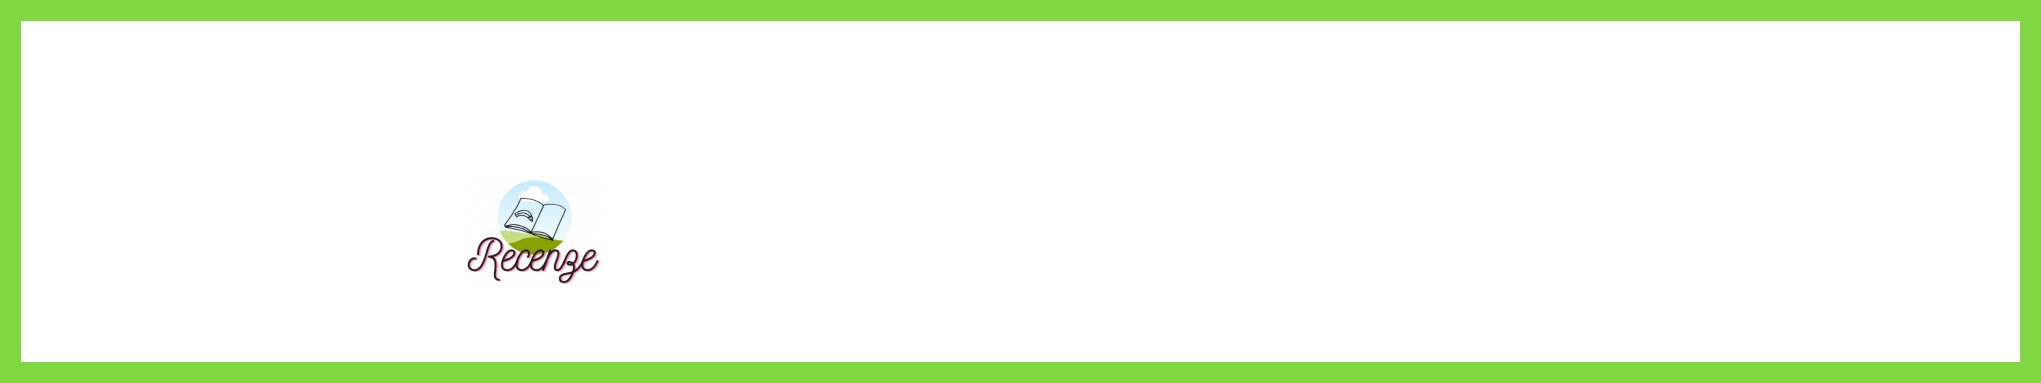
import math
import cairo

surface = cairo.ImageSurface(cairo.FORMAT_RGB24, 2041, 383)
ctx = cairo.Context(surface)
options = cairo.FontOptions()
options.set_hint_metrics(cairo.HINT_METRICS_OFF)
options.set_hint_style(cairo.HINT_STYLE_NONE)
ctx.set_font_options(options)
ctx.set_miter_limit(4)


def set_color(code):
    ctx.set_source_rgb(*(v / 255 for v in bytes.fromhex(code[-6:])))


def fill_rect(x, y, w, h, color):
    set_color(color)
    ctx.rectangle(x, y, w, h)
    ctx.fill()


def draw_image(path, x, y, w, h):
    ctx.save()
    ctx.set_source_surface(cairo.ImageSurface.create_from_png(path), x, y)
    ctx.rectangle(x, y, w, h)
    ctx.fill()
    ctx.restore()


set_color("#81d742")
ctx.paint()
fill_rect(21, 21, 1999, 341, "#ffffff")
draw_image("assets/img1.png", 467, 180, 134, 104)
surface.write_to_png("output.png")
